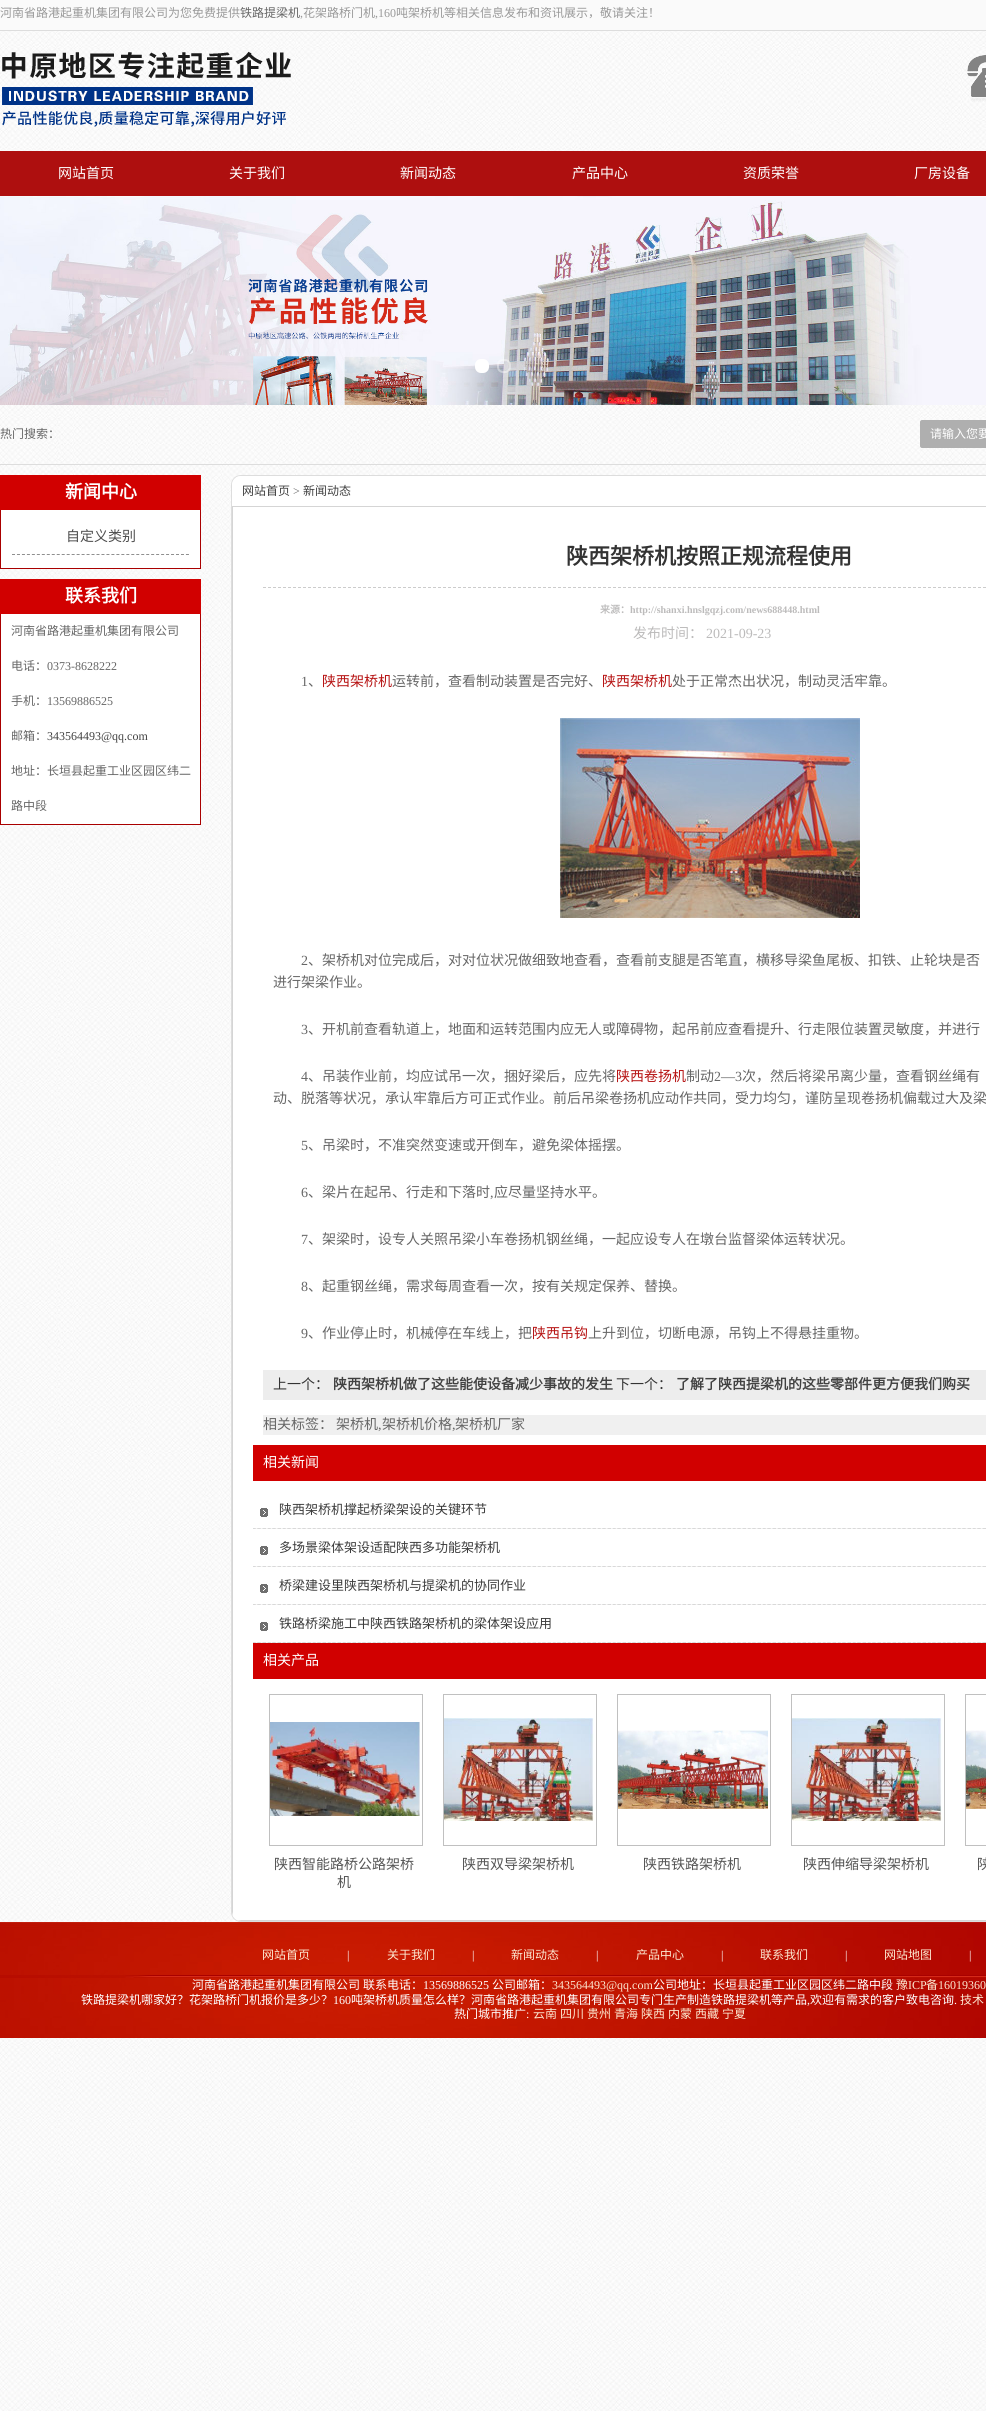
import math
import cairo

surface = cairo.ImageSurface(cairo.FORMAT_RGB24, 986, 2411)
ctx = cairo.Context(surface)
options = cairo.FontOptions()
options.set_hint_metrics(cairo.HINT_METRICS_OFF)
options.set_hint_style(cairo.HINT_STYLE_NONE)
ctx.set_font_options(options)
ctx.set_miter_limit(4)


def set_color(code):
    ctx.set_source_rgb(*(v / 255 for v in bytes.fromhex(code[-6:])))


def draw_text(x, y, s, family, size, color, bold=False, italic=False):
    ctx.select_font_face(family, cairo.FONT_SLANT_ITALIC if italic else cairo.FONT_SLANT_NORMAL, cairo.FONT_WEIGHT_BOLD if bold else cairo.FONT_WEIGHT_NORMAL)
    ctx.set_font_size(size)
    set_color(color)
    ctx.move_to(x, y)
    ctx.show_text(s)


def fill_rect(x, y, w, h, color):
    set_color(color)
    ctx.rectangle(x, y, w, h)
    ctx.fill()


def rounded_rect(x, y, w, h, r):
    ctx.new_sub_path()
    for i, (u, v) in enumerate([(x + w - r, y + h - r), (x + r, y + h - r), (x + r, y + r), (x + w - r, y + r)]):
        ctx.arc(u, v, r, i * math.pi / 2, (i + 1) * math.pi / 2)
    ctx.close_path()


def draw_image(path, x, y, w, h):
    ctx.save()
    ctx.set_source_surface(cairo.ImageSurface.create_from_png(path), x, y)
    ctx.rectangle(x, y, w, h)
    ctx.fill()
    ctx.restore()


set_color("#ffffff")
ctx.paint()
draw_image("assets/img1.png", 0, 31, 986, 2380)
fill_rect(0, 0, 986, 30, "#fafafa")
fill_rect(0, 30, 986, 1, "#dddddd")
draw_text(0, 17, "河南省路港起重机集团有限公司为您免费提供", "Noto Sans CJK SC", 12, "#999999")
draw_text(240, 17, "铁路提梁机", "Noto Sans CJK SC", 12, "#666666")
draw_text(300, 17, ",", "Liberation Serif", 12, "#999999")
draw_text(303, 17, "花架路桥门机", "Noto Sans CJK SC", 12, "#999999")
draw_text(375, 17, ",160", "Liberation Serif", 12, "#999999")
draw_text(396, 17, "吨架桥机等相关信息发布和资讯展示，敬请关注！", "Noto Sans CJK SC", 12, "#999999")
draw_image("assets/img2.png", 2, 51, 289, 76)
draw_image("assets/img3.png", 967, 54, 19, 48)
fill_rect(0, 151, 986, 45, "#ae0f0f")
draw_text(58, 178, "网站首页", "Noto Sans CJK SC", 14, "#ffffff")
draw_text(229, 178, "关于我们", "Noto Sans CJK SC", 14, "#ffffff")
draw_text(400, 178, "新闻动态", "Noto Sans CJK SC", 14, "#ffffff")
draw_text(572, 178, "产品中心", "Noto Sans CJK SC", 14, "#ffffff")
draw_text(743, 178, "资质荣誉", "Noto Sans CJK SC", 14, "#ffffff")
draw_text(914, 178, "厂房设备", "Noto Sans CJK SC", 14, "#ffffff")
draw_image("assets/img4.png", 0, 196, 986, 209)
rounded_rect(476, 360, 12, 12, 5)
ctx.fill_preserve()
ctx.stroke()
rounded_rect(498, 360, 12, 12, 5)
ctx.set_source_rgba(1, 1, 1, 0.4)
ctx.stroke()
fill_rect(0, 464, 986, 1, "#dddddd")
draw_text(0, 438, "热门搜索：", "Noto Sans CJK SC", 12, "#666666")
fill_rect(922, 420, 64, 28, "#afafaf")
draw_image("assets/img5.png", 920, 420, 2, 28)
draw_text(930, 438, "请输入您要", "Noto Sans CJK SC", 12, "#ffffff")
fill_rect(0, 475, 201, 35, "#d10000")
draw_text(65, 498, "新闻中心", "Noto Sans CJK SC", 18, "#ffffff", bold=True)
fill_rect(1, 510, 199, 58, "#ffffff")
fill_rect(200, 510, 1, 59, "#a90000")
fill_rect(0, 568, 201, 1, "#a90000")
fill_rect(0, 510, 1, 59, "#a90000")
ctx.new_path()
ctx.move_to(12, 554.5)
ctx.line_to(189, 554.5)
set_color("#8f8f8f")
ctx.set_line_width(1)
ctx.set_dash([3, 1.97])
ctx.stroke()
draw_text(66, 541, "自定义类别", "Noto Sans CJK SC", 14, "#4d4d4d")
fill_rect(0, 579, 201, 35, "#d10000")
draw_text(65, 602, "联系我们", "Noto Sans CJK SC", 18, "#ffffff", bold=True)
fill_rect(1, 614, 199, 210, "#ffffff")
fill_rect(200, 614, 1, 211, "#a90000")
fill_rect(0, 824, 201, 1, "#a90000")
fill_rect(0, 614, 1, 211, "#a90000")
draw_text(11, 635, "河南省路港起重机集团有限公司", "Noto Sans CJK SC", 12, "#666666")
draw_text(11, 670, "电话：", "Noto Sans CJK SC", 12, "#666666")
draw_text(47, 670, "0373-8628222", "Liberation Serif", 12, "#666666")
draw_text(11, 705, "手机：", "Noto Sans CJK SC", 12, "#666666")
draw_text(47, 705, "13569886525", "Liberation Serif", 12, "#666666")
draw_text(11, 740, "邮箱：", "Noto Sans CJK SC", 12, "#666666")
draw_text(47, 740, "343564493@qq.com", "Liberation Serif", 12, "#414141")
draw_text(11, 775, "地址：长垣县起重工业区园区纬二", "Noto Sans CJK SC", 12, "#666666")
draw_text(11, 810, "路中段", "Noto Sans CJK SC", 12, "#666666")
rounded_rect(231.5, 475.5, 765, 1446, 9.5)
set_color("#dddddd")
ctx.set_dash([])
ctx.stroke()
set_color("#ffffff")
ctx.new_path()
ctx.move_to(241, 476)
ctx.line_to(986, 476)
ctx.curve_to(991, 476, 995, 480, 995, 485)
ctx.line_to(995, 506)
ctx.line_to(232, 506)
ctx.line_to(232, 485)
ctx.curve_to(232, 480, 236, 476, 241, 476)
ctx.close_path()
ctx.fill()
draw_text(242, 495, "网站首页", "Noto Sans CJK SC", 12, "#414141")
draw_text(293, 495, ">", "Liberation Serif", 12, "#666666")
draw_text(303, 495, "新闻动态", "Noto Sans CJK SC", 12, "#414141")
set_color("#ffffff")
ctx.new_path()
ctx.move_to(232, 506)
ctx.line_to(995, 506)
ctx.line_to(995, 1912)
ctx.curve_to(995, 1917, 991, 1921, 986, 1921)
ctx.line_to(241, 1921)
ctx.curve_to(236, 1921, 232, 1917, 232, 1912)
ctx.close_path()
ctx.fill()
set_color("#d5d5d5")
ctx.set_fill_rule(cairo.FILL_RULE_EVEN_ODD)
ctx.new_path()
ctx.move_to(233, 507)
ctx.line_to(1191, 507)
ctx.line_to(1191, 1916)
ctx.line_to(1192, 1912)
ctx.line_to(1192, 506)
ctx.line_to(232, 506)
ctx.line_to(232, 1912)
ctx.line_to(233, 1916)
ctx.close_path()
ctx.move_to(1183, 1921)
ctx.line_to(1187, 1920)
ctx.line_to(237, 1920)
ctx.line_to(241, 1921)
ctx.close_path()
ctx.fill()
ctx.new_path()
ctx.move_to(263, 587.5)
ctx.line_to(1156, 587.5)
set_color("#cccccc")
ctx.set_dash([3, 2])
ctx.stroke()
draw_text(566, 564, "陕西架桥机按照正规流程使用", "Noto Sans CJK SC", 22, "#333333", bold=True)
draw_text(600, 613, "来源：", "Noto Sans CJK SC", 10, "#bcbbbb", bold=True)
draw_text(630, 613, "http://shanxi.hnslgqzj.com/news688448.html", "Liberation Serif", 10, "#bcbbbb", bold=True)
draw_text(633, 638, "发布时间：", "Noto Sans CJK SC", 14, "#bcbbbb")
draw_text(706, 638, "2021-09-23", "Liberation Serif", 14, "#bcbbbb")
draw_text(301, 686, "1", "Liberation Serif", 14, "#666666")
draw_text(308, 686, "、", "Noto Sans CJK SC", 14, "#666666")
draw_text(322, 686, "陕西架桥机", "Noto Sans CJK SC", 14, "#b61212")
draw_text(392, 686, "运转前，查看制动装置是否完好、", "Noto Sans CJK SC", 14, "#666666")
draw_text(602, 686, "陕西架桥机", "Noto Sans CJK SC", 14, "#b61212")
draw_text(672, 686, "处于正常杰出状况，制动灵活牢靠。", "Noto Sans CJK SC", 14, "#666666")
draw_image("assets/img6.png", 560, 718, 300, 200)
draw_text(301, 965, "2", "Liberation Serif", 14, "#666666")
draw_text(308, 965, "、架桥机对位完成后，对对位状况做细致地查看，查看前支腿是否笔直，横移导梁鱼尾板、扣铁、止轮块是否", "Noto Sans CJK SC", 14, "#666666")
draw_text(273, 987, "进行架梁作业。", "Noto Sans CJK SC", 14, "#666666")
draw_text(301, 1034, "3", "Liberation Serif", 14, "#666666")
draw_text(308, 1034, "、开机前查看轨道上，地面和运转范围内应无人或障碍物，起吊前应查看提升、行走限位装置灵敏度，并进行", "Noto Sans CJK SC", 14, "#666666")
draw_text(301, 1081, "4", "Liberation Serif", 14, "#666666")
draw_text(308, 1081, "、吊装作业前，均应试吊一次，捆好梁后，应先将", "Noto Sans CJK SC", 14, "#666666")
draw_text(616, 1081, "陕西卷扬机", "Noto Sans CJK SC", 14, "#b61212")
draw_text(686, 1081, "制动", "Noto Sans CJK SC", 14, "#666666")
draw_text(714, 1081, "2―3", "Liberation Serif", 14, "#666666")
draw_text(742, 1081, "次，然后将梁吊离少量，查看钢丝绳有", "Noto Sans CJK SC", 14, "#666666")
draw_text(273, 1103, "动、脱落等状况，承认牢靠后方可正式作业。前后吊梁卷扬机应动作共同，受力均匀，谨防呈现卷扬机偏载过大及梁", "Noto Sans CJK SC", 14, "#666666")
draw_text(301, 1150, "5", "Liberation Serif", 14, "#666666")
draw_text(308, 1150, "、吊梁时，不准突然变速或开倒车，避免梁体摇摆。", "Noto Sans CJK SC", 14, "#666666")
draw_text(301, 1197, "6", "Liberation Serif", 14, "#666666")
draw_text(308, 1197, "、梁片在起吊、行走和下落时", "Noto Sans CJK SC", 14, "#666666")
draw_text(490, 1197, ",", "Liberation Serif", 14, "#666666")
draw_text(494, 1197, "应尽量坚持水平。", "Noto Sans CJK SC", 14, "#666666")
draw_text(301, 1244, "7", "Liberation Serif", 14, "#666666")
draw_text(308, 1244, "、架梁时，设专人关照吊梁小车卷扬机钢丝绳，一起应设专人在墩台监督梁体运转状况。", "Noto Sans CJK SC", 14, "#666666")
draw_text(301, 1291, "8", "Liberation Serif", 14, "#666666")
draw_text(308, 1291, "、起重钢丝绳，需求每周查看一次，按有关规定保养、替换。", "Noto Sans CJK SC", 14, "#666666")
draw_text(301, 1338, "9", "Liberation Serif", 14, "#666666")
draw_text(308, 1338, "、作业停止时，机械停在车线上，把", "Noto Sans CJK SC", 14, "#666666")
draw_text(532, 1338, "陕西吊钩", "Noto Sans CJK SC", 14, "#b61212")
draw_text(588, 1338, "上升到位，切断电源，吊钩上不得悬挂重物。", "Noto Sans CJK SC", 14, "#666666")
fill_rect(263, 1370, 723, 30, "#ededed")
draw_text(273, 1389, "上一个：", "Noto Sans CJK SC", 14, "#333333")
draw_text(333, 1389, "陕西架桥机做了这些能使设备减少事故的发生", "Noto Sans CJK SC", 14, "#414141", bold=True)
draw_text(616, 1389, "下一个：", "Noto Sans CJK SC", 14, "#333333")
draw_text(676, 1389, "了解了陕西提梁机的这些零部件更方便我们购买", "Noto Sans CJK SC", 14, "#414141", bold=True)
fill_rect(263, 1415, 723, 20, "#f0f0f0")
draw_text(263, 1429, "相关标签：", "Noto Sans CJK SC", 14, "#666666")
draw_text(336, 1429, "架桥机", "Noto Sans CJK SC", 14, "#666666")
draw_text(378, 1429, ",", "Liberation Serif", 14, "#666666")
draw_text(382, 1429, "架桥机价格", "Noto Sans CJK SC", 14, "#666666")
draw_text(452, 1429, ",", "Liberation Serif", 14, "#666666")
draw_text(455, 1429, "架桥机厂家", "Noto Sans CJK SC", 14, "#666666")
fill_rect(253, 1445, 733, 36, "#d10000")
draw_text(263, 1467, "相关新闻", "Noto Sans CJK SC", 14, "#ffffff")
draw_image("assets/img7.png", 253, 1528, 733, 1)
draw_image("assets/img8.png", 260, 1508, 8, 9)
draw_text(279, 1514, "陕西架桥机撑起桥梁架设的关键环节", "Noto Sans CJK SC", 13, "#3b3b3b")
draw_image("assets/img7.png", 253, 1566, 733, 1)
draw_image("assets/img8.png", 260, 1546, 8, 9)
draw_text(279, 1552, "多场景梁体架设适配陕西多功能架桥机", "Noto Sans CJK SC", 13, "#3b3b3b")
draw_image("assets/img7.png", 253, 1604, 733, 1)
draw_image("assets/img8.png", 260, 1584, 8, 9)
draw_text(279, 1590, "桥梁建设里陕西架桥机与提梁机的协同作业", "Noto Sans CJK SC", 13, "#3b3b3b")
draw_image("assets/img7.png", 253, 1642, 733, 1)
draw_image("assets/img8.png", 260, 1622, 8, 9)
draw_text(279, 1628, "铁路桥梁施工中陕西铁路架桥机的梁体架设应用", "Noto Sans CJK SC", 13, "#3b3b3b")
fill_rect(253, 1643, 733, 36, "#d10000")
draw_text(263, 1665, "相关产品", "Noto Sans CJK SC", 14, "#ffffff")
ctx.rectangle(269.5, 1694.5, 153, 151)
set_color("#c0c0c0")
ctx.set_dash([])
ctx.stroke()
draw_image("assets/img9.png", 270, 1722, 150, 94)
draw_text(274, 1869, "陕西智能路桥公路架桥", "Noto Sans CJK SC", 14, "#555555")
draw_text(337, 1887, "机", "Noto Sans CJK SC", 14, "#555555")
ctx.rectangle(443.5, 1694.5, 153, 151)
set_color("#c0c0c0")
ctx.stroke()
draw_image("assets/img10.png", 444, 1718, 150, 103)
draw_text(462, 1869, "陕西双导梁架桥机", "Noto Sans CJK SC", 14, "#555555")
ctx.rectangle(617.5, 1694.5, 153, 151)
set_color("#c0c0c0")
ctx.stroke()
draw_image("assets/img11.png", 618, 1730, 150, 79)
draw_text(643, 1869, "陕西铁路架桥机", "Noto Sans CJK SC", 14, "#555555")
ctx.rectangle(791.5, 1694.5, 153, 151)
set_color("#c0c0c0")
ctx.stroke()
draw_image("assets/img12.png", 792, 1718, 150, 103)
draw_text(803, 1869, "陕西伸缩导梁架桥机", "Noto Sans CJK SC", 14, "#555555")
ctx.rectangle(965.5, 1694.5, 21, 151)
set_color("#c0c0c0")
ctx.stroke()
draw_image("assets/img13.png", 966, 1730, 20, 79)
draw_text(977, 1869, "陕", "Noto Sans CJK SC", 14, "#555555")
draw_image("assets/img14.png", 0, 1922, 986, 116)
draw_image("assets/img15.png", 0, 1975, 986, 3)
draw_text(262, 1959, "网站首页", "Noto Sans CJK SC", 12, "#fde9d2")
draw_text(347, 1959, "|", "Liberation Serif", 12, "#ffffff")
draw_text(387, 1959, "关于我们", "Noto Sans CJK SC", 12, "#fde9d2")
draw_text(472, 1959, "|", "Liberation Serif", 12, "#ffffff")
draw_text(511, 1959, "新闻动态", "Noto Sans CJK SC", 12, "#fde9d2")
draw_text(596, 1959, "|", "Liberation Serif", 12, "#ffffff")
draw_text(636, 1959, "产品中心", "Noto Sans CJK SC", 12, "#fde9d2")
draw_text(721, 1959, "|", "Liberation Serif", 12, "#ffffff")
draw_text(760, 1959, "联系我们", "Noto Sans CJK SC", 12, "#fde9d2")
draw_text(845, 1959, "|", "Liberation Serif", 12, "#ffffff")
draw_text(884, 1959, "网站地图", "Noto Sans CJK SC", 12, "#fde9d2")
draw_text(969, 1959, "|", "Liberation Serif", 12, "#ffffff")
draw_text(192, 1989, "河南省路港起重机集团有限公司", "Noto Sans CJK SC", 12, "#ffffff")
draw_text(363, 1989, "联系电话：", "Noto Sans CJK SC", 12, "#ffffff")
draw_text(423, 1989, "13569886525", "Liberation Serif", 12, "#ffffff")
draw_text(492, 1989, "公司邮箱：", "Noto Sans CJK SC", 12, "#ffffff")
draw_text(552, 1989, "343564493@qq.com", "Liberation Serif", 12, "#fde9d2")
draw_text(653, 1989, "公司地址：长垣县起重工业区园区纬二路中段", "Noto Sans CJK SC", 12, "#ffffff")
draw_text(896, 1989, "豫", "Noto Sans CJK SC", 12, "#fde9d2")
draw_text(908, 1989, "ICP", "Liberation Serif", 12, "#fde9d2")
draw_text(926, 1989, "备", "Noto Sans CJK SC", 12, "#fde9d2")
draw_text(938, 1989, "16019360", "Liberation Serif", 12, "#fde9d2")
draw_text(81, 2004, "铁路提梁机哪家好？花架路桥门机报价是多少？", "Noto Sans CJK SC", 12, "#ffffff")
draw_text(333, 2004, "160", "Liberation Serif", 12, "#ffffff")
draw_text(351, 2004, "吨架桥机质量怎么样？河南省路港起重机集团有限公司专门生产制造铁路提梁机等产品", "Noto Sans CJK SC", 12, "#ffffff")
draw_text(807, 2004, ",", "Liberation Serif", 12, "#ffffff")
draw_text(810, 2004, "欢迎有需求的客户致电咨询", "Noto Sans CJK SC", 12, "#ffffff")
draw_text(954, 2004, ".", "Liberation Serif", 12, "#ffffff")
draw_text(960, 2004, "技术", "Noto Sans CJK SC", 12, "#fde9d2")
draw_text(454, 2018, "热门城市推广", "Noto Sans CJK SC", 12, "#ffffff")
draw_text(526, 2018, ":", "Liberation Serif", 12, "#ffffff")
draw_text(533, 2018, "云南", "Noto Sans CJK SC", 12, "#fde9d2")
draw_text(560, 2018, "四川", "Noto Sans CJK SC", 12, "#fde9d2")
draw_text(587, 2018, "贵州", "Noto Sans CJK SC", 12, "#fde9d2")
draw_text(614, 2018, "青海", "Noto Sans CJK SC", 12, "#fde9d2")
draw_text(641, 2018, "陕西", "Noto Sans CJK SC", 12, "#fde9d2")
draw_text(668, 2018, "内蒙", "Noto Sans CJK SC", 12, "#fde9d2")
draw_text(695, 2018, "西藏", "Noto Sans CJK SC", 12, "#fde9d2")
draw_text(722, 2018, "宁夏", "Noto Sans CJK SC", 12, "#fde9d2")
surface.write_to_png("output.png")
